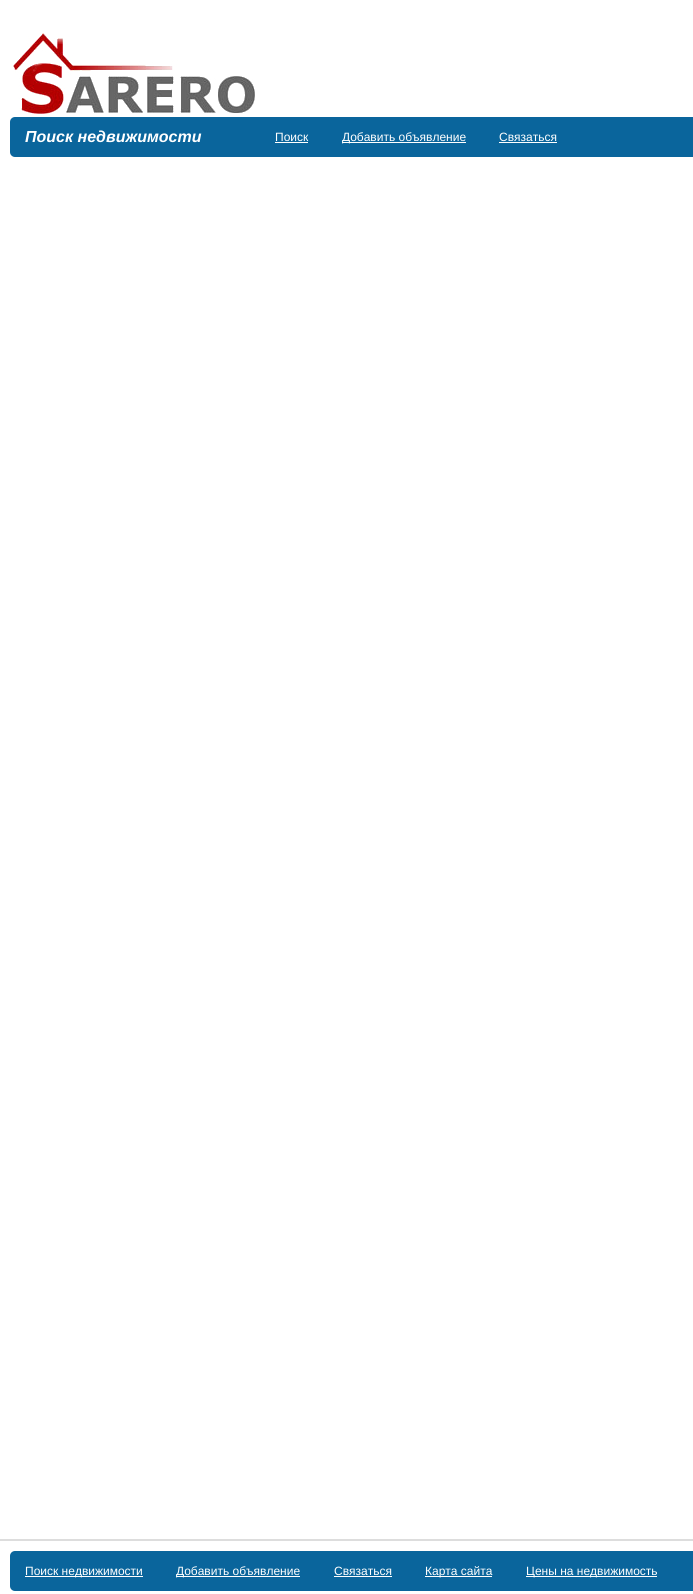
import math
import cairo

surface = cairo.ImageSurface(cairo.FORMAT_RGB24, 693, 1594)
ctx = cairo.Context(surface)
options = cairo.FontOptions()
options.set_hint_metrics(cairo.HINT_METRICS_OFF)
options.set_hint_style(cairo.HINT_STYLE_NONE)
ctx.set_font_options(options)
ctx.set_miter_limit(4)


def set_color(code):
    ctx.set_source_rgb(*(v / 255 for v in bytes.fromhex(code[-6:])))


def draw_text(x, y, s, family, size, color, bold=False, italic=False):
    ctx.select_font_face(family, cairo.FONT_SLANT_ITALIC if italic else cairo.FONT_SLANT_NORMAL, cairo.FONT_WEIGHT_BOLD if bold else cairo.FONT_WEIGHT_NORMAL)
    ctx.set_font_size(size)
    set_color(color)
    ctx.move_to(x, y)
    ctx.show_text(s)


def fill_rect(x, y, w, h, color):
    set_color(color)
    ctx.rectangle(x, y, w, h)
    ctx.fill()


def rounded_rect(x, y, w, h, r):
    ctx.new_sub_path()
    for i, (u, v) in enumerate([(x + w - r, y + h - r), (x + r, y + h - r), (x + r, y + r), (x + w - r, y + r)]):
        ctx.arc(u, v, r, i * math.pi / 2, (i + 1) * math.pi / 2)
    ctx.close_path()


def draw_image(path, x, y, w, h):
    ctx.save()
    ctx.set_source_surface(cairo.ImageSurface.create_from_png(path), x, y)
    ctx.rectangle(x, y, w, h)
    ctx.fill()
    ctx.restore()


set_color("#ffffff")
ctx.paint()
draw_image("assets/img1.png", 13, 33, 242, 81)
set_color("#0a659c")
rounded_rect(10, 117, 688, 40, 5)
ctx.fill()
draw_text(25, 142, "Поиск недвижимости", "Liberation Sans", 16, "#ffffff", bold=True, italic=True)
draw_text(275, 141, "Поиск", "Liberation Sans", 12, "#ffffff")
fill_rect(275, 142, 33, 1, "#ffffff")
fill_rect(342, 142, 124, 1, "#ffffff")
draw_text(342, 141, "Добавить объявление", "Liberation Sans", 12, "#ffffff")
draw_text(499, 141, "Связаться", "Liberation Sans", 12, "#ffffff")
fill_rect(499, 142, 58, 1, "#ffffff")
fill_rect(0, 1539, 693, 2, "#dddddd")
set_color("#0a659c")
rounded_rect(10, 1551, 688, 40, 5)
ctx.fill()
fill_rect(25, 1576, 118, 1, "#ffffff")
draw_text(25, 1575, "Поиск недвижимости", "Liberation Sans", 12, "#ffffff")
fill_rect(176, 1576, 124, 1, "#ffffff")
draw_text(176, 1575, "Добавить объявление", "Liberation Sans", 12, "#ffffff")
draw_text(334, 1575, "Связаться", "Liberation Sans", 12, "#ffffff")
fill_rect(334, 1576, 58, 1, "#ffffff")
fill_rect(425, 1576, 67, 1, "#ffffff")
draw_text(425, 1575, "Карта сайта", "Liberation Sans", 12, "#ffffff")
fill_rect(526, 1576, 131, 1, "#ffffff")
draw_text(526, 1575, "Цены на недвижимость", "Liberation Sans", 12, "#ffffff")
surface.write_to_png("output.png")
